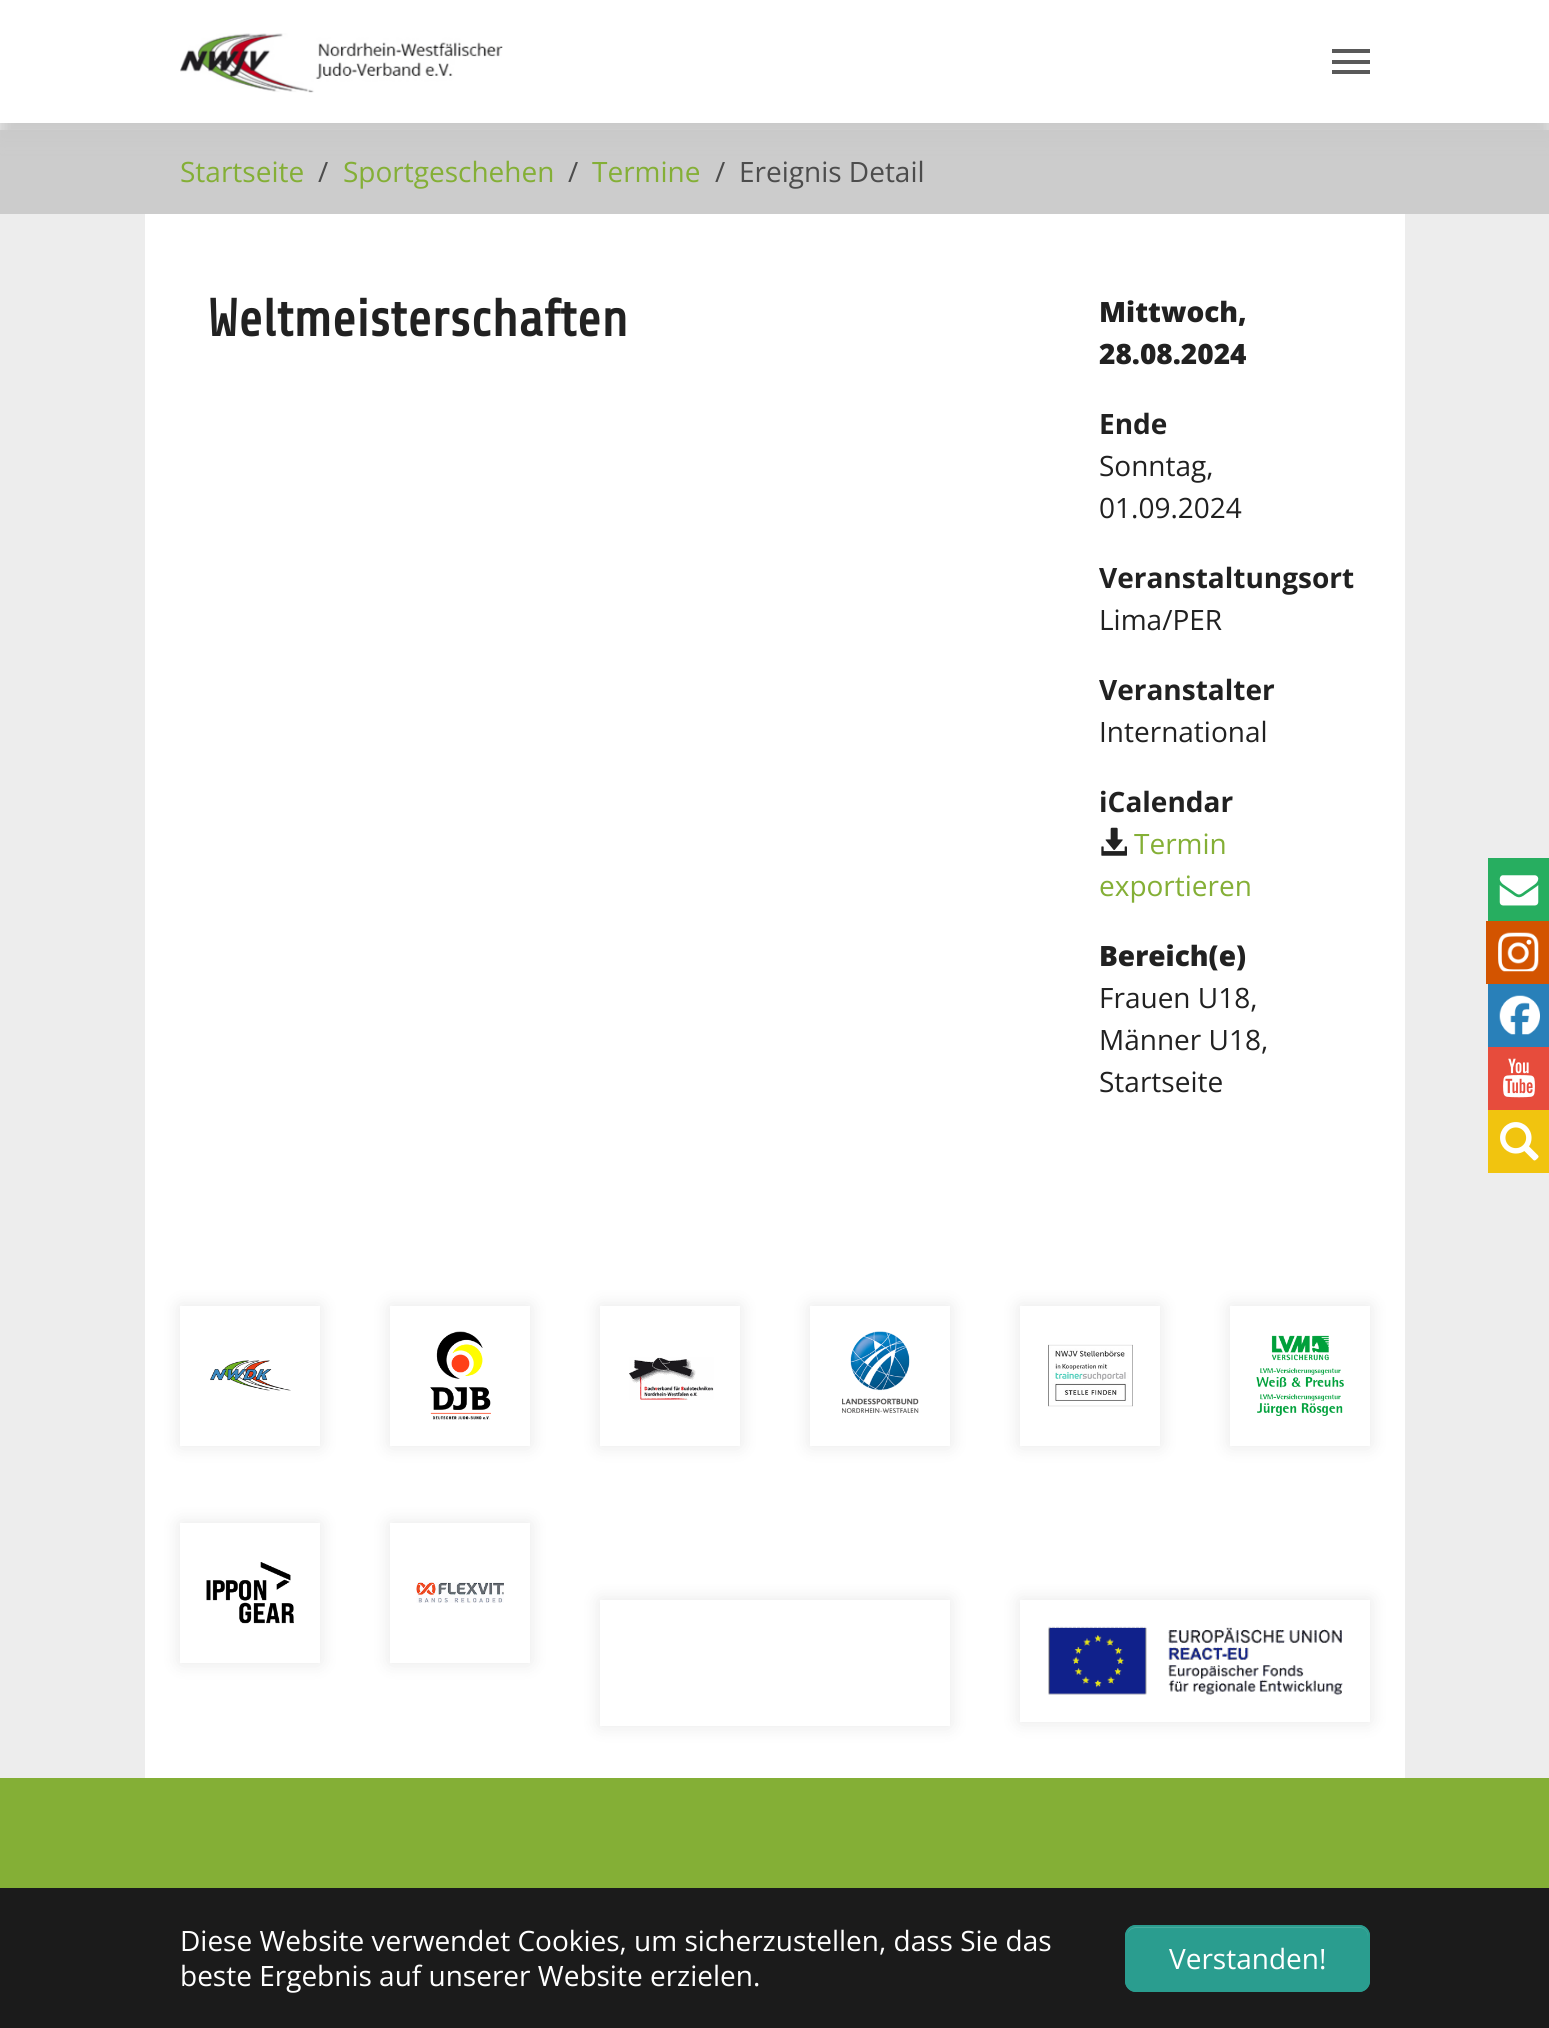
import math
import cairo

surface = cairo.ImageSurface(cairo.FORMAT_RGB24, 1549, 2028)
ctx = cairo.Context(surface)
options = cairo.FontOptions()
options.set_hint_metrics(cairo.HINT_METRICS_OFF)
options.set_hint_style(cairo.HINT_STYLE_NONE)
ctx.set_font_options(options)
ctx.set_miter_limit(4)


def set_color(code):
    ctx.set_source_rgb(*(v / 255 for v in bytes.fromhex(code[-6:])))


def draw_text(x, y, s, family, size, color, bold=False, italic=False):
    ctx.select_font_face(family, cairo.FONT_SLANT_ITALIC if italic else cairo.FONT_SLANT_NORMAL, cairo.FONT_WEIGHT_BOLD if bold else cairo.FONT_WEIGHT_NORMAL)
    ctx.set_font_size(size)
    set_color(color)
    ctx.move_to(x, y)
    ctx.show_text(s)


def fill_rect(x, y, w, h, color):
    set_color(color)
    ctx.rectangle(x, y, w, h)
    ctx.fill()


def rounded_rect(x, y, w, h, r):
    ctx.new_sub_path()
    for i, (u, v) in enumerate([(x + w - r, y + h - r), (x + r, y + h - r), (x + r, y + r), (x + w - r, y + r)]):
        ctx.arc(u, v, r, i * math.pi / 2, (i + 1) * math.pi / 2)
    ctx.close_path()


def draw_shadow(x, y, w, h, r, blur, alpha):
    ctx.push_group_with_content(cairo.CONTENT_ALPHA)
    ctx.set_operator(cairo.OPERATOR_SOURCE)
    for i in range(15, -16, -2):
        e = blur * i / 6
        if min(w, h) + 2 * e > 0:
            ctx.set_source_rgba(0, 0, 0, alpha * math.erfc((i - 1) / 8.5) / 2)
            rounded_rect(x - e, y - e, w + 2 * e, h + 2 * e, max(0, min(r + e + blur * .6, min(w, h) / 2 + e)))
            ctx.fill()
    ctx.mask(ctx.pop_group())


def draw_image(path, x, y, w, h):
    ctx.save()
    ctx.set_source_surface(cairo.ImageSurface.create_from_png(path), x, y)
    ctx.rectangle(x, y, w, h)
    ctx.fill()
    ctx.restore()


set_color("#ededed")
ctx.paint()
fill_rect(0, 130, 1549, 84, "#cccccc")
set_color("#c9c9c9")
draw_shadow(0, 18, 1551, 122, 0, 9, 1)
fill_rect(0, 0, 1549, 123, "#ffffff")
draw_image("assets/img1.png", 180, 33, 323, 60)
fill_rect(1332, 60, 38, 4, "#595959")
fill_rect(1332, 49, 38, 4, "#595959")
fill_rect(1332, 70, 38, 4, "#595959")
draw_text(180, 182, "Startseite", "Open Sans", 28, "#84af36")
draw_text(318, 182, "/", "Open Sans", 28, "#4c4c4c")
draw_text(343, 182, "Sportgeschehen", "Open Sans", 28, "#84af36")
draw_text(568, 182, "/", "Open Sans", 28, "#4c4c4c")
draw_text(592, 182, "Termine", "Open Sans", 28, "#84af36")
draw_text(715, 182, "/", "Open Sans", 28, "#4c4c4c")
draw_text(739, 182, "Ereignis Detail", "Open Sans", 28, "#4c4c4c")
fill_rect(145, 214, 1260, 1564, "#ffffff")
draw_text(207, 336, "Weltmeisterschaften", "Share", 52.5, "#212121", bold=True)
draw_text(1099, 322, "Mittwoch,", "Open Sans ExtraBold", 28, "#212121")
draw_text(1099, 364, "28.08.2024", "Open Sans ExtraBold", 28, "#212121")
draw_text(1099, 434, "Ende", "Open Sans", 28, "#212121", bold=True)
draw_text(1099, 476, "Sonntag,", "Open Sans", 28, "#212121")
draw_text(1099, 518, "01.09.2024", "Open Sans", 28, "#212121")
draw_text(1099, 588, "Veranstaltungsort", "Open Sans", 28, "#212121", bold=True)
draw_text(1099, 630, "Lima/PER", "Open Sans", 28, "#212121")
draw_text(1099, 700, "Veranstalter", "Open Sans", 28, "#212121", bold=True)
draw_text(1099, 742, "International", "Open Sans", 28, "#212121")
draw_text(1099, 812, "iCalendar", "Open Sans", 28, "#212121", bold=True)
draw_image("assets/img2.png", 1101, 827, 26, 29)
draw_text(1134, 854, "Termin", "Open Sans", 28, "#84af36")
draw_text(1099, 896, "exportieren", "Open Sans", 28, "#84af36")
draw_text(1099, 966, "Bereich(e)", "Open Sans ExtraBold", 28, "#212121")
draw_text(1099, 1008, "Frauen U18,", "Open Sans", 28, "#212121")
draw_text(1099, 1050, "Männer U18,", "Open Sans", 28, "#212121")
draw_text(1099, 1092, "Startseite", "Open Sans", 28, "#212121")
fill_rect(1488, 858, 61, 63, "#27ae60")
draw_image("assets/img3.png", 1499, 875, 40, 31)
fill_rect(1486, 921, 63, 63, "#d35400")
draw_image("assets/img4.png", 1498, 932, 41, 40)
fill_rect(1488, 984, 61, 63, "#2980b9")
draw_image("assets/img5.png", 1499, 995, 41, 40)
fill_rect(1488, 1047, 61, 63, "#e74c3c")
draw_image("assets/img6.png", 1503, 1058, 32, 40)
fill_rect(1488, 1110, 61, 63, "#f1c40f")
draw_image("assets/img7.png", 1500, 1122, 39, 39)
ctx.save()
ctx.set_fill_rule(cairo.FILL_RULE_EVEN_ODD)
ctx.new_path()
ctx.move_to(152, 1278)
ctx.line_to(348, 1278)
ctx.line_to(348, 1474)
ctx.line_to(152, 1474)
ctx.close_path()
ctx.move_to(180, 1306)
ctx.line_to(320, 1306)
ctx.line_to(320, 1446)
ctx.line_to(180, 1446)
ctx.close_path()
ctx.clip()
set_color("#000000")
draw_shadow(180, 1306, 140, 140, 0, 9, 0.1)
ctx.restore()
draw_image("assets/img8.png", 210, 1360, 81, 31)
ctx.save()
ctx.set_fill_rule(cairo.FILL_RULE_EVEN_ODD)
ctx.new_path()
ctx.move_to(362, 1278)
ctx.line_to(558, 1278)
ctx.line_to(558, 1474)
ctx.line_to(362, 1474)
ctx.close_path()
ctx.move_to(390, 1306)
ctx.line_to(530, 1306)
ctx.line_to(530, 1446)
ctx.line_to(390, 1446)
ctx.close_path()
ctx.clip()
set_color("#000000")
draw_shadow(390, 1306, 140, 140, 0, 9, 0.1)
ctx.restore()
draw_image("assets/img9.png", 430, 1331, 61, 89)
ctx.save()
ctx.set_fill_rule(cairo.FILL_RULE_EVEN_ODD)
ctx.new_path()
ctx.move_to(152, 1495)
ctx.line_to(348, 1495)
ctx.line_to(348, 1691)
ctx.line_to(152, 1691)
ctx.close_path()
ctx.move_to(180, 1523)
ctx.line_to(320, 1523)
ctx.line_to(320, 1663)
ctx.line_to(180, 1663)
ctx.close_path()
ctx.clip()
set_color("#000000")
draw_shadow(180, 1523, 140, 140, 0, 9, 0.1)
ctx.restore()
draw_image("assets/img10.png", 206, 1562, 88, 62)
ctx.save()
ctx.set_fill_rule(cairo.FILL_RULE_EVEN_ODD)
ctx.new_path()
ctx.move_to(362, 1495)
ctx.line_to(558, 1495)
ctx.line_to(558, 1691)
ctx.line_to(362, 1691)
ctx.close_path()
ctx.move_to(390, 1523)
ctx.line_to(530, 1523)
ctx.line_to(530, 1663)
ctx.line_to(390, 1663)
ctx.close_path()
ctx.clip()
set_color("#000000")
draw_shadow(390, 1523, 140, 140, 0, 9, 0.1)
ctx.restore()
draw_image("assets/img11.png", 416, 1582, 88, 21)
ctx.save()
ctx.set_fill_rule(cairo.FILL_RULE_EVEN_ODD)
ctx.new_path()
ctx.move_to(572, 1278)
ctx.line_to(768, 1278)
ctx.line_to(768, 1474)
ctx.line_to(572, 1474)
ctx.close_path()
ctx.move_to(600, 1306)
ctx.line_to(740, 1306)
ctx.line_to(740, 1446)
ctx.line_to(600, 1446)
ctx.close_path()
ctx.clip()
set_color("#000000")
draw_shadow(600, 1306, 140, 140, 0, 9, 0.1)
ctx.restore()
draw_image("assets/img12.png", 629, 1357, 85, 43)
ctx.save()
ctx.set_fill_rule(cairo.FILL_RULE_EVEN_ODD)
ctx.new_path()
ctx.move_to(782, 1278)
ctx.line_to(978, 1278)
ctx.line_to(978, 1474)
ctx.line_to(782, 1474)
ctx.close_path()
ctx.move_to(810, 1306)
ctx.line_to(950, 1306)
ctx.line_to(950, 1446)
ctx.line_to(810, 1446)
ctx.close_path()
ctx.clip()
set_color("#000000")
draw_shadow(810, 1306, 140, 140, 0, 9, 0.1)
ctx.restore()
draw_image("assets/img13.png", 842, 1331, 77, 82)
ctx.save()
ctx.set_fill_rule(cairo.FILL_RULE_EVEN_ODD)
ctx.new_path()
ctx.move_to(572, 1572)
ctx.line_to(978, 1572)
ctx.line_to(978, 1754)
ctx.line_to(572, 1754)
ctx.close_path()
ctx.move_to(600, 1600)
ctx.line_to(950, 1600)
ctx.line_to(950, 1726)
ctx.line_to(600, 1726)
ctx.close_path()
ctx.clip()
set_color("#000000")
draw_shadow(600, 1600, 350, 126, 0, 9, 0.1)
ctx.restore()
ctx.save()
ctx.set_fill_rule(cairo.FILL_RULE_EVEN_ODD)
ctx.new_path()
ctx.move_to(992, 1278)
ctx.line_to(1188, 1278)
ctx.line_to(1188, 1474)
ctx.line_to(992, 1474)
ctx.close_path()
ctx.move_to(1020, 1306)
ctx.line_to(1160, 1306)
ctx.line_to(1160, 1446)
ctx.line_to(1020, 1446)
ctx.close_path()
ctx.clip()
set_color("#000000")
draw_shadow(1020, 1306, 140, 140, 0, 9, 0.1)
ctx.restore()
draw_image("assets/img14.png", 1048, 1344, 85, 63)
ctx.save()
ctx.set_fill_rule(cairo.FILL_RULE_EVEN_ODD)
ctx.new_path()
ctx.move_to(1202, 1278)
ctx.line_to(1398, 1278)
ctx.line_to(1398, 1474)
ctx.line_to(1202, 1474)
ctx.close_path()
ctx.move_to(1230, 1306)
ctx.line_to(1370, 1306)
ctx.line_to(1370, 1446)
ctx.line_to(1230, 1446)
ctx.close_path()
ctx.clip()
set_color("#000000")
draw_shadow(1230, 1306, 140, 140, 0, 9, 0.1)
ctx.restore()
draw_image("assets/img15.png", 1256, 1335, 88, 81)
ctx.save()
ctx.set_fill_rule(cairo.FILL_RULE_EVEN_ODD)
ctx.new_path()
ctx.move_to(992, 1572)
ctx.line_to(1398, 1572)
ctx.line_to(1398, 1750)
ctx.line_to(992, 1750)
ctx.close_path()
ctx.move_to(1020, 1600)
ctx.line_to(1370, 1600)
ctx.line_to(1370, 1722)
ctx.line_to(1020, 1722)
ctx.close_path()
ctx.clip()
set_color("#000000")
draw_shadow(1020, 1600, 350, 122, 0, 9, 0.1)
ctx.restore()
draw_image("assets/img16.png", 1048, 1626, 295, 69)
fill_rect(0, 1778, 1549, 110, "#84af36")
fill_rect(0, 1888, 1549, 140, "#1b1b1b")
draw_text(180, 1951, "Diese Website verwendet Cookies, um sicherzustellen, dass Sie das", "Open Sans", 28, "#ffffff")
draw_text(180, 1986, "beste Ergebnis auf unserer Website erzielen.", "Open Sans", 28, "#ffffff")
set_color("#2a9d8f")
rounded_rect(1125, 1925, 245, 67, 11)
ctx.fill()
set_color("#4aaca0")
ctx.new_path()
ctx.move_to(1136, 1928)
ctx.line_to(1360, 1928)
ctx.curve_to(1365, 1928, 1368, 1932, 1368, 1937)
ctx.line_to(1368, 1986)
ctx.curve_to(1369, 1984, 1369, 1983, 1369, 1981)
ctx.line_to(1369, 1936)
ctx.curve_to(1369, 1931, 1365, 1927, 1360, 1927)
ctx.line_to(1136, 1927)
ctx.curve_to(1131, 1927, 1127, 1931, 1127, 1936)
ctx.line_to(1127, 1937)
ctx.curve_to(1127, 1932, 1131, 1928, 1136, 1928)
ctx.close_path()
ctx.fill()
rounded_rect(1126, 1926, 243, 65, 10)
set_color("#2a9d8f")
ctx.stroke()
draw_text(1169, 1969, "Verstanden!", "Open Sans", 28, "#ffffff")
surface.write_to_png("output.png")
